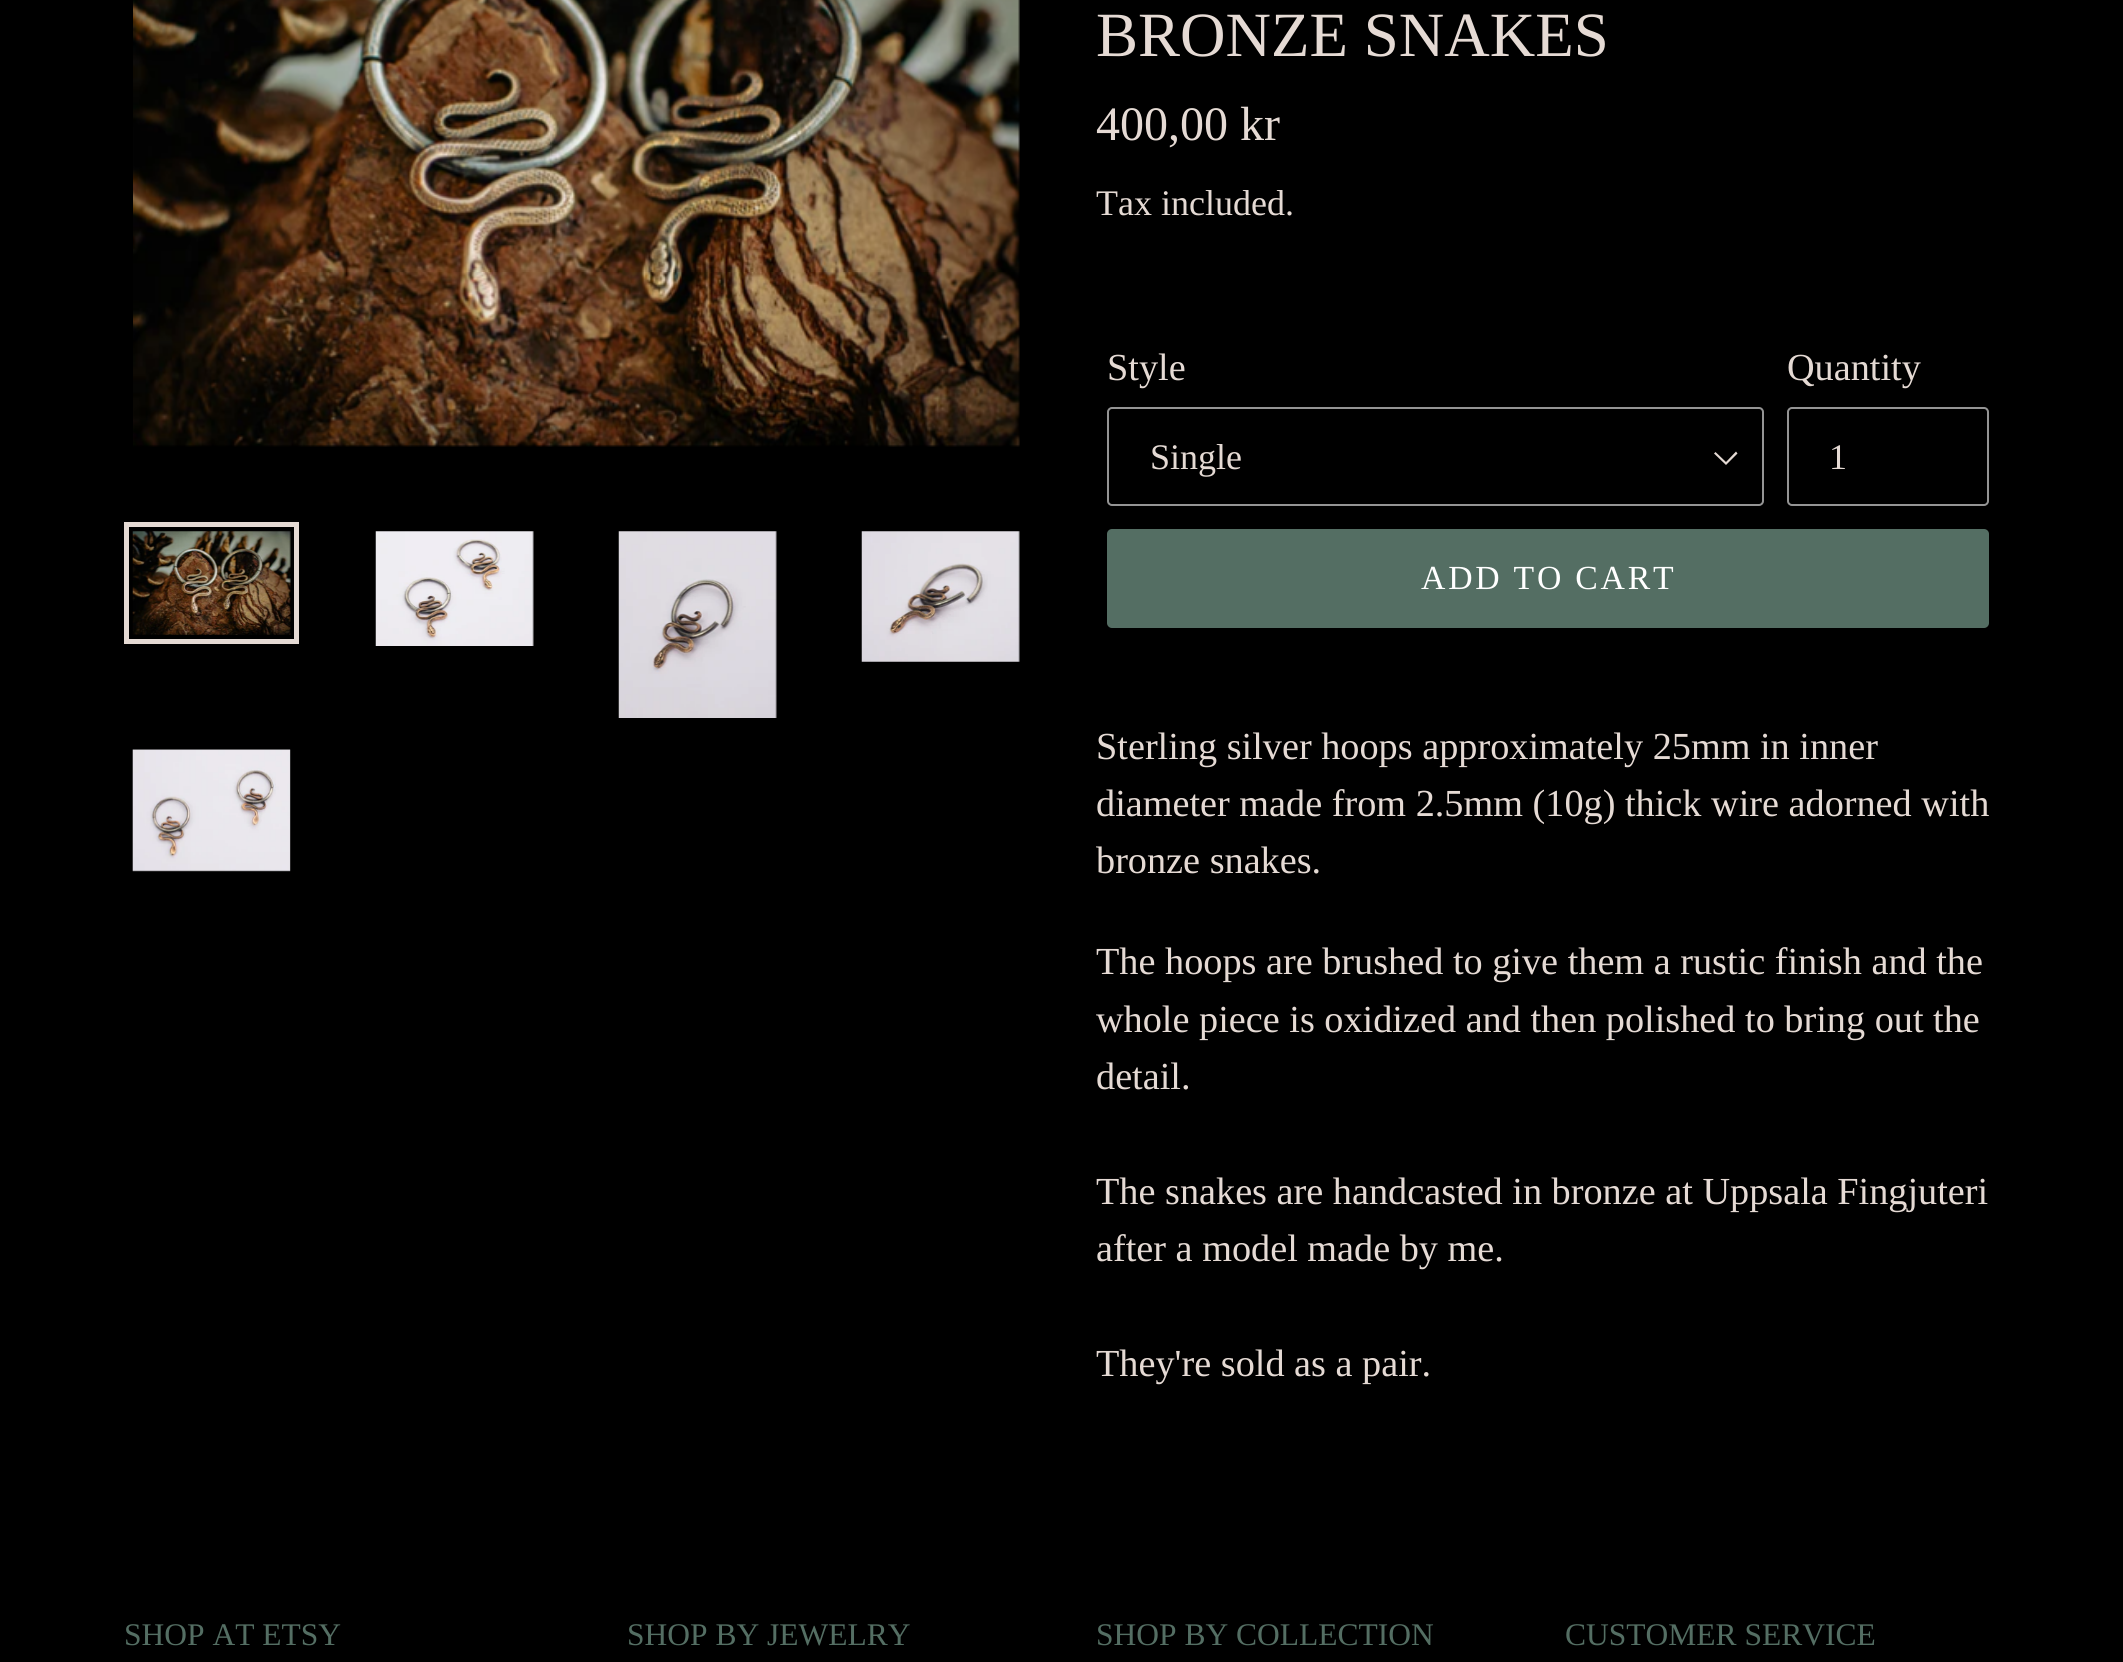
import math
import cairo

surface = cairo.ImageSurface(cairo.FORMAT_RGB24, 2123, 1662)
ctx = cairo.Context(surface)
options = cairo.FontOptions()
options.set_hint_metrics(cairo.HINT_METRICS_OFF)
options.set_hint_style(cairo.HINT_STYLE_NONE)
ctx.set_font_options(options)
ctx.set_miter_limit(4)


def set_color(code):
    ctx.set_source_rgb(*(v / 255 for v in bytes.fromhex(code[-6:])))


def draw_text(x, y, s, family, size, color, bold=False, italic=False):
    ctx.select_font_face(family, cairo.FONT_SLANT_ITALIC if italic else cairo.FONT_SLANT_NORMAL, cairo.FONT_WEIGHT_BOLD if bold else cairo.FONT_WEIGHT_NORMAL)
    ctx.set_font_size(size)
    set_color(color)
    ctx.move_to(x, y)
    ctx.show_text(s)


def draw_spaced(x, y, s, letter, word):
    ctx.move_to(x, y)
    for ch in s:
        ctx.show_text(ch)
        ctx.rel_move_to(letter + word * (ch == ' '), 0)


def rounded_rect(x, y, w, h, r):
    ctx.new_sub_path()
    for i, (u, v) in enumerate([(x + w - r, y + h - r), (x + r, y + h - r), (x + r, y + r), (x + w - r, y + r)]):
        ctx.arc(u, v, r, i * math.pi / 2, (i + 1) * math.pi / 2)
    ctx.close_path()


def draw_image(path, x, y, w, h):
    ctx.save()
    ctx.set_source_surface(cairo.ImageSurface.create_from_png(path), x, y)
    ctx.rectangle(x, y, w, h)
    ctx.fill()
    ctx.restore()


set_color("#000000")
ctx.paint()
draw_image("assets/img1.png", 133, 0, 887, 447)
ctx.rectangle(126.5, 524.5, 170, 117)
set_color("#e5dad4")
ctx.set_line_width(5)
ctx.stroke()
draw_image("assets/img2.png", 132, 531, 159, 104)
draw_image("assets/img3.png", 375, 531, 159, 115)
draw_image("assets/img4.png", 618, 531, 159, 187)
draw_image("assets/img5.png", 861, 531, 159, 131)
draw_image("assets/img6.png", 132, 749, 159, 123)
draw_text(1096, 56, "BRONZE SNAKES", "Liberation Serif", 63, "#e5dad4")
draw_text(1096, 140, "400,00 kr", "Liberation Serif", 48, "#e5dad4")
draw_text(1096, 215, "Tax included.", "Liberation Serif", 36, "#e5dad4")
draw_text(1107, 380, "Style", "Liberation Serif", 38.25, "#e5dad4")
ctx.new_path()
ctx.move_to(1726, 465)
ctx.line_to(1714, 453.5)
ctx.line_to(1715.5, 452)
ctx.line_to(1726, 462)
ctx.line_to(1736, 451.5)
ctx.line_to(1737.5, 453.5)
ctx.close_path()
ctx.fill()
rounded_rect(1108, 408, 655, 97, 4)
set_color("#949494")
ctx.set_line_width(2)
ctx.stroke()
draw_text(1150, 469, "Single", "Liberation Serif", 36, "#e5dad4")
draw_text(1787, 380, "Quantity", "Liberation Serif", 38.25, "#e5dad4")
rounded_rect(1788, 408, 200, 97, 4)
set_color("#949494")
ctx.stroke()
draw_text(1829, 469, "1", "Liberation Serif", 36, "#e5dad4")
set_color("#546e63")
rounded_rect(1107, 529, 882, 99, 5)
ctx.fill()
ctx.set_font_size(33.75)
set_color("#ffffff")
draw_spaced(1421, 589, "ADD TO CART", 2.75, 0)
draw_text(1096, 759, "Sterling silver hoops approximately 25mm in inner", "Liberation Serif", 38.25, "#e5dad4")
draw_text(1096, 816, "diameter made from 2.5mm (10g) thick wire adorned with", "Liberation Serif", 38.25, "#e5dad4")
draw_text(1096, 873, "bronze snakes.", "Liberation Serif", 38.25, "#e5dad4")
draw_text(1096, 974, "The hoops are brushed to give them a rustic finish and the", "Liberation Serif", 38.25, "#e5dad4")
draw_text(1096, 1032, "whole piece is oxidized and then polished to bring out the", "Liberation Serif", 38.25, "#e5dad4")
draw_text(1096, 1089, "detail.", "Liberation Serif", 38.25, "#e5dad4")
draw_text(1096, 1204, "The snakes are handcasted in bronze at Uppsala Fingjuteri", "Liberation Serif", 38.25, "#e5dad4")
draw_text(1096, 1261, "after a model made by me.", "Liberation Serif", 38.25, "#e5dad4")
draw_text(1096, 1376, "They're sold as a pair.", "Liberation Serif", 38.25, "#e5dad4")
draw_text(124, 1645, "SHOP AT ETSY", "Liberation Serif", 31.5, "#546e63")
draw_text(627, 1645, "SHOP BY JEWELRY", "Liberation Serif", 31.5, "#546e63")
draw_text(1096, 1645, "SHOP BY COLLECTION", "Liberation Serif", 31.5, "#546e63")
draw_text(1565, 1645, "CUSTOMER SERVICE", "Liberation Serif", 31.5, "#546e63")
surface.write_to_png("output.png")
